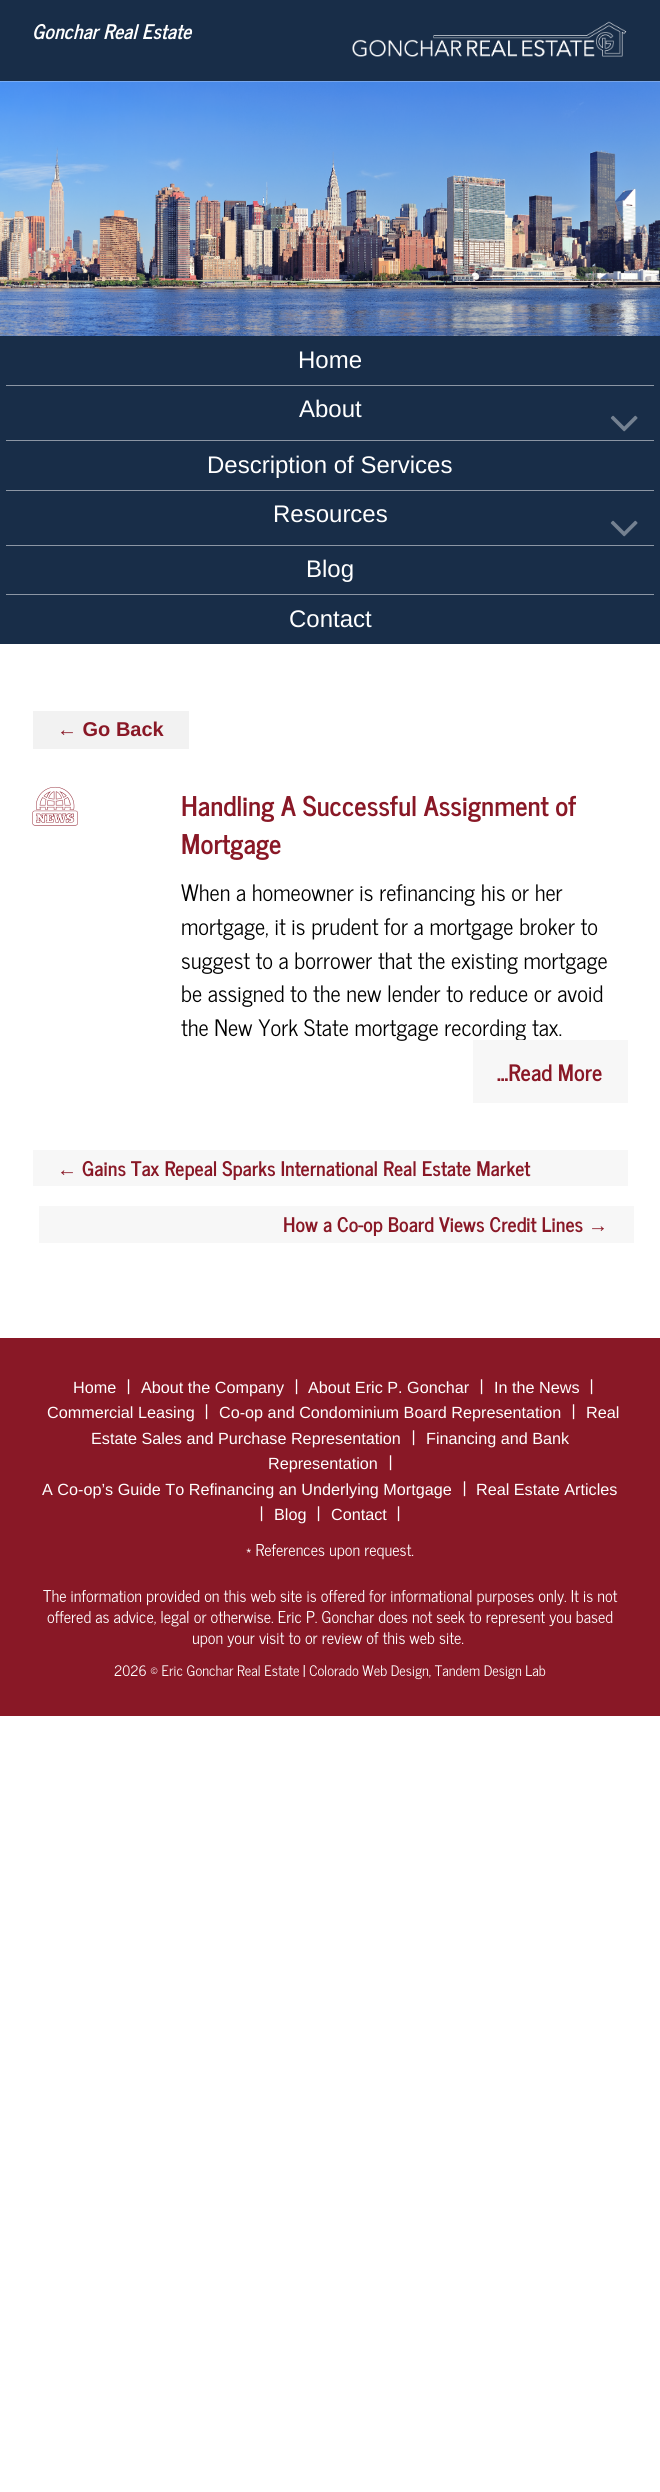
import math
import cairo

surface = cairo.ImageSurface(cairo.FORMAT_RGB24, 660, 2492)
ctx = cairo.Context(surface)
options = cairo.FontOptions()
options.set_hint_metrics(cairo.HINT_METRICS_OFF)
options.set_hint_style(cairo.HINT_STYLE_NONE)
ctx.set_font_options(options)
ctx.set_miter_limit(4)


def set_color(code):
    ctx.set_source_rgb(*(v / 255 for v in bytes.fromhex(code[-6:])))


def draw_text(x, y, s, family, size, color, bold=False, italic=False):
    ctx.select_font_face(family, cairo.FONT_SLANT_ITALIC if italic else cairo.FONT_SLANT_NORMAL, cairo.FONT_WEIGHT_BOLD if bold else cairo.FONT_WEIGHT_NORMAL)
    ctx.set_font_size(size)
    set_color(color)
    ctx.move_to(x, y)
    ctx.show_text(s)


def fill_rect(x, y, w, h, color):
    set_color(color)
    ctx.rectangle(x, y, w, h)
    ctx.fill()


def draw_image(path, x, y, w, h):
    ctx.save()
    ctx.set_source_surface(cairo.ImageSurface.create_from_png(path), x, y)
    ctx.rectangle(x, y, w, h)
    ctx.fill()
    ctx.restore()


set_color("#ffffff")
ctx.paint()
fill_rect(0, 0, 660, 81, "#182d48")
draw_text(32, 39, "Gonchar Real Estate", "News Cycle", 20, "#ffffff", bold=True, italic=True)
draw_image("assets/img1.png", 352, 21, 275, 36)
draw_image("assets/img2.png", 0, 81, 660, 255)
fill_rect(0, 336, 660, 308, "#182d48")
draw_text(298, 368, "Home", "Liberation Sans", 24, "#ffffff")
fill_rect(6, 385, 648, 1, "#8c96a4")
draw_text(299, 417, "About", "Liberation Sans", 24, "#ffffff")
draw_image("assets/img3.png", 610, 415, 28, 17)
fill_rect(6, 440, 648, 1, "#8c96a4")
draw_text(207, 473, "Description of Services", "Liberation Sans", 24, "#ffffff")
fill_rect(6, 490, 648, 1, "#8c96a4")
draw_text(273, 522, "Resources", "Liberation Sans", 24, "#ffffff")
draw_image("assets/img3.png", 610, 520, 28, 17)
fill_rect(6, 545, 648, 1, "#8c96a4")
draw_text(306, 577, "Blog", "Liberation Sans", 24, "#ffffff")
fill_rect(6, 594, 648, 1, "#8c96a4")
draw_text(289, 627, "Contact", "Liberation Sans", 24, "#ffffff")
fill_rect(33, 711, 156, 38, "#f2f2f2")
draw_text(57, 736, "← Go Back", "Liberation Sans", 20, "#891826", bold=True)
draw_image("assets/img4.png", 32, 786, 46, 40)
draw_text(181, 816, "Handling A Successful Assignment of", "News Cycle", 27, "#891826", bold=True)
draw_text(181, 854, "Mortgage", "News Cycle", 27, "#891826", bold=True)
draw_text(181, 901, "When a homeowner is refinancing his or her", "News Cycle", 22.5, "#000000")
draw_text(181, 935, "mortgage, it is prudent for a mortgage broker to", "News Cycle", 22.5, "#000000")
draw_text(181, 969, "suggest to a borrower that the existing mortgage", "News Cycle", 22.5, "#000000")
draw_text(181, 1002, "be assigned to the new lender to reduce or avoid", "News Cycle", 22.5, "#000000")
draw_text(181, 1036, "the New York State mortgage recording tax.", "News Cycle", 22.5, "#000000")
fill_rect(473, 1040, 155, 63, "#f7f7f7")
draw_text(497, 1081, "...Read More", "News Cycle", 22.5, "#891826", bold=True)
fill_rect(33, 1150, 595, 36, "#f7f7f7")
draw_text(57, 1176, "←", "Liberation Sans", 20, "#891826", bold=True)
draw_text(82, 1176, "Gains Tax Repeal Sparks International Real Estate Market", "News Cycle", 20, "#891826", bold=True)
fill_rect(39, 1206, 595, 37, "#f7f7f7")
draw_text(283, 1232, "How a Co-op Board Views Credit Lines", "News Cycle", 20, "#891826", bold=True)
draw_text(588, 1232, "→", "Liberation Sans", 20, "#891826", bold=True)
fill_rect(0, 1338, 660, 378, "#891826")
draw_text(73, 1393, "Home", "Liberation Sans", 16.2, "#ffffff")
draw_text(127, 1393, "|", "News Cycle", 18, "#ffffff")
draw_text(141, 1393, "About the Company", "Liberation Sans", 16.2, "#ffffff")
draw_text(295, 1393, "|", "News Cycle", 18, "#ffffff")
draw_text(308, 1393, "About Eric P. Gonchar", "Liberation Sans", 16.2, "#ffffff")
draw_text(480, 1393, "|", "News Cycle", 18, "#ffffff")
draw_text(494, 1393, "In the News", "Liberation Sans", 16.2, "#ffffff")
draw_text(590, 1393, "|", "News Cycle", 18, "#ffffff")
draw_text(47, 1418, "Commercial Leasing", "Liberation Sans", 16.2, "#ffffff")
draw_text(205, 1418, "|", "News Cycle", 18, "#ffffff")
draw_text(219, 1418, "Co-op and Condominium Board Representation", "Liberation Sans", 16.2, "#ffffff")
draw_text(572, 1418, "|", "News Cycle", 18, "#ffffff")
draw_text(586, 1418, "Real", "Liberation Sans", 16.2, "#ffffff")
draw_text(91, 1444, "Estate Sales and Purchase Representation", "Liberation Sans", 16.2, "#ffffff")
draw_text(412, 1444, "|", "News Cycle", 18, "#ffffff")
draw_text(426, 1444, "Financing and Bank", "Liberation Sans", 16.2, "#ffffff")
draw_text(268, 1469, "Representation", "Liberation Sans", 16.2, "#ffffff")
draw_text(389, 1469, "|", "News Cycle", 18, "#ffffff")
draw_text(42, 1495, "A Co-op’s Guide To Refinancing an Underlying Mortgage", "Liberation Sans", 16.2, "#ffffff")
draw_text(463, 1495, "|", "News Cycle", 18, "#ffffff")
draw_text(476, 1495, "Real Estate Articles", "Liberation Sans", 16.2, "#ffffff")
draw_text(260, 1520, "|", "News Cycle", 18, "#ffffff")
draw_text(274, 1520, "Blog", "Liberation Sans", 16.2, "#ffffff")
draw_text(317, 1520, "|", "News Cycle", 18, "#ffffff")
draw_text(331, 1520, "Contact", "Liberation Sans", 16.2, "#ffffff")
draw_text(397, 1520, "|", "News Cycle", 18, "#ffffff")
draw_text(246, 1556, "* References upon request.", "News Cycle", 16.2, "#ffffff")
draw_text(43, 1602, "The information provided on this web site is offered for informational purposes only. It is not", "News Cycle", 16.2, "#ffffff")
draw_text(47, 1623, "offered as advice, legal or otherwise. Eric P. Gonchar does not seek to represent you based", "News Cycle", 16.2, "#ffffff")
draw_text(192, 1644, "upon your visit to or review of this web site.", "News Cycle", 16.2, "#ffffff")
draw_text(114, 1676, "2026 © Eric Gonchar Real Estate | Colorado Web Design, Tandem Design Lab", "News Cycle", 14.4, "#ffffff")
surface.write_to_png("output.png")
